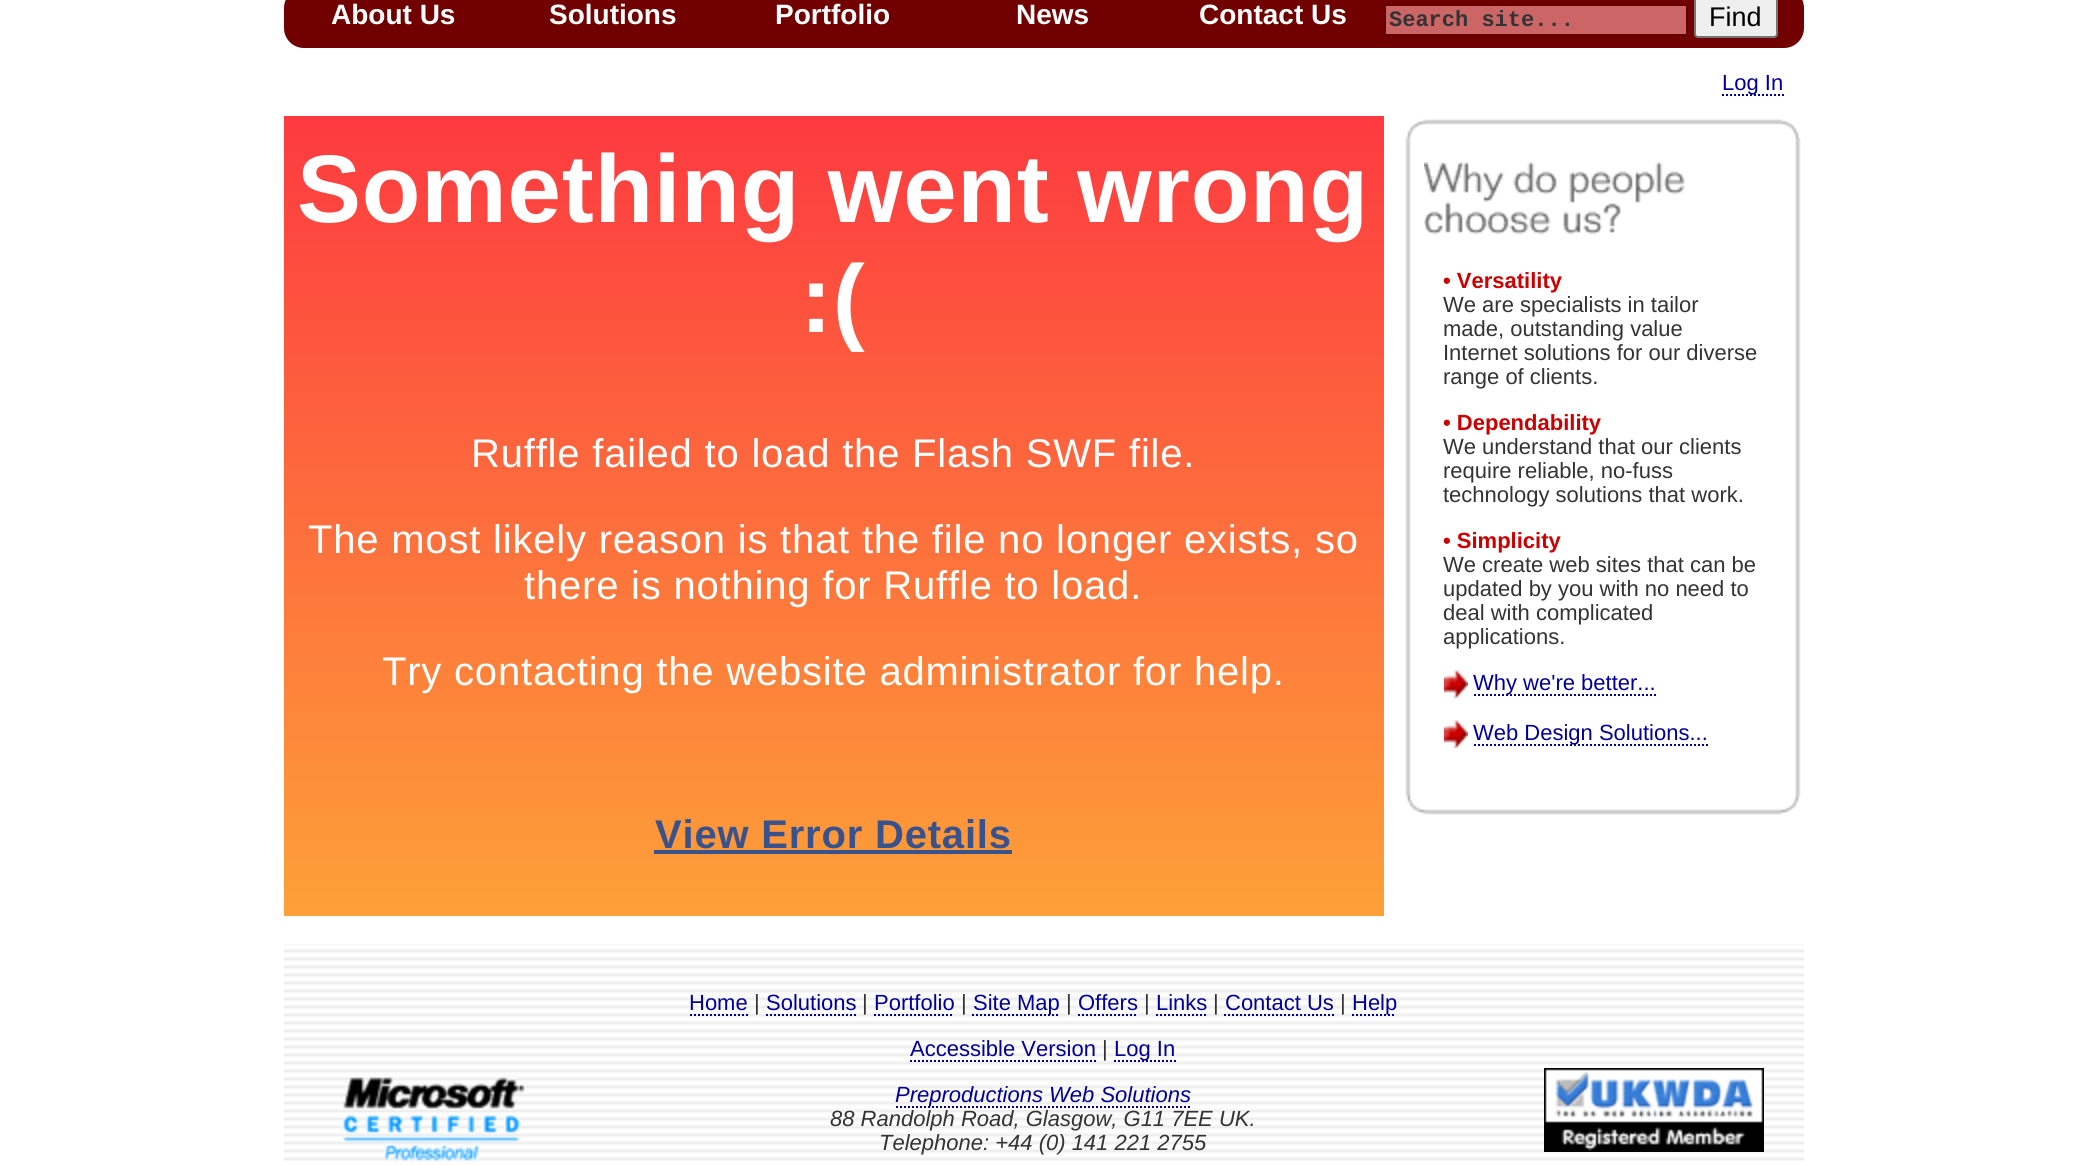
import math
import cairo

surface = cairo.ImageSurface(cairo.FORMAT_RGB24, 2085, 1165)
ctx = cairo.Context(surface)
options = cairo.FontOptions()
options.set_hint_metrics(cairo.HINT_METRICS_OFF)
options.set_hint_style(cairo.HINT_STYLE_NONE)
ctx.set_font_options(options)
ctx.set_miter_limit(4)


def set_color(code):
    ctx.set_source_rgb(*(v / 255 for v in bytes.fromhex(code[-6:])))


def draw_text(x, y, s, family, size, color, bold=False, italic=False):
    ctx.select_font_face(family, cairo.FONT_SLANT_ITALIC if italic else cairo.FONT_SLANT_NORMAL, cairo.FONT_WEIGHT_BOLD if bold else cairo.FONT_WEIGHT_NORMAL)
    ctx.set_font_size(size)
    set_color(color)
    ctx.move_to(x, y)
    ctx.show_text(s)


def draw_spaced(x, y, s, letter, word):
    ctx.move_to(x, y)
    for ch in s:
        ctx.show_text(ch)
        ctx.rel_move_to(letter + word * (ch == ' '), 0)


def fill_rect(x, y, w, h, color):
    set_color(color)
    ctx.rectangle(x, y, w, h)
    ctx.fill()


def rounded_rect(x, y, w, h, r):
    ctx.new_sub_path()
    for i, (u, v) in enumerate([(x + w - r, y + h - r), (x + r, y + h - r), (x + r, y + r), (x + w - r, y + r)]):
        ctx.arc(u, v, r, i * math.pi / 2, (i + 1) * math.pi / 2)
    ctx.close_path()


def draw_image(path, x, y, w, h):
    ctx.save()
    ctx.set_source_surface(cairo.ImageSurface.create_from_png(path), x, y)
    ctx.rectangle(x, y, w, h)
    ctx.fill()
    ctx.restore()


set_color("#ffffff")
ctx.paint()
set_color("#710000")
rounded_rect(284, -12, 1520, 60, 20)
ctx.fill()
draw_text(331, 24, "About Us", "Liberation Sans", 28, "#ffffff", bold=True)
draw_text(549, 24, "Solutions", "Liberation Sans", 28, "#ffffff", bold=True)
draw_text(775, 24, "Portfolio", "Liberation Sans", 28, "#ffffff", bold=True)
draw_text(1016, 24, "News", "Liberation Sans", 28, "#ffffff", bold=True)
draw_text(1199, 24, "Contact Us", "Liberation Sans", 28, "#ffffff", bold=True)
set_color("#cc6666")
ctx.rectangle(1385, 5, 302, 30)
ctx.fill_preserve()
set_color("#660000")
ctx.stroke()
draw_text(1389, 26, "Search site...", "Liberation Mono", 22, "#333333", bold=True)
set_color("#efefef")
rounded_rect(1695, -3, 82, 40, 3)
ctx.fill_preserve()
set_color("#767676")
ctx.stroke()
draw_text(1709, 26, "Find", "Liberation Sans", 27, "#000000")
ctx.new_path()
ctx.move_to(1722, 95)
ctx.line_to(1784, 95)
set_color("#000099")
ctx.set_dash([2, 2])
ctx.stroke()
draw_text(1722, 90, "Log In", "Liberation Sans", 22, "#000099")
gradient = cairo.LinearGradient(834, 116, 834, 916)
gradient.add_color_stop_rgba(0, 0.992, 0.227, 0.251, 1)
gradient.add_color_stop_rgba(1, 0.992, 0.631, 0.22, 1)
ctx.set_source(gradient)
ctx.rectangle(284, 116, 1100, 800)
ctx.fill()
ctx.select_font_face("Liberation Sans", cairo.FONT_SLANT_NORMAL, cairo.FONT_WEIGHT_BOLD)
ctx.set_font_size(96)
set_color("#ffffff")
draw_spaced(297, 222, "Something went wrong", 0.8, 0)
draw_spaced(800, 332, ":(", 0.8, 0)
ctx.select_font_face("Liberation Sans")
ctx.set_font_size(40)
draw_spaced(471, 467, "Ruffle failed to load the Flash SWF file.", 0.8, 0)
draw_spaced(308, 553, "The most likely reason is that the file no longer exists, so", 0.8, 0)
draw_spaced(524, 599, "there is nothing for Ruffle to load.", 0.8, 0)
draw_spaced(382, 685, "Try contacting the website administrator for help.", 0.8, 0)
ctx.select_font_face("Liberation Sans", cairo.FONT_SLANT_NORMAL, cairo.FONT_WEIGHT_BOLD)
set_color("#37528c")
draw_spaced(655, 848, "View Error Details", 0.8, 0)
fill_rect(654, 850, 358, 4, "#37528c")
draw_image("assets/img1.png", 1405, 119, 395, 19)
draw_image("assets/img2.png", 1405, 138, 396, 656)
draw_image("assets/img3.png", 1424, 162, 261, 73)
draw_text(1443, 288, "• Versatility", "Liberation Sans", 22, "#cc0000", bold=True)
draw_text(1443, 312, "We are specialists in tailor", "Liberation Sans", 22, "#333333")
draw_text(1443, 336, "made, outstanding value", "Liberation Sans", 22, "#333333")
draw_text(1443, 360, "Internet solutions for our diverse", "Liberation Sans", 22, "#333333")
draw_text(1443, 384, "range of clients.", "Liberation Sans", 22, "#333333")
draw_text(1443, 430, "• Dependability", "Liberation Sans", 22, "#cc0000", bold=True)
draw_text(1443, 454, "We understand that our clients", "Liberation Sans", 22, "#333333")
draw_text(1443, 478, "require reliable, no-fuss", "Liberation Sans", 22, "#333333")
draw_text(1443, 502, "technology solutions that work.", "Liberation Sans", 22, "#333333")
draw_text(1443, 548, "• Simplicity", "Liberation Sans", 22, "#cc0000", bold=True)
draw_text(1443, 572, "We create web sites that can be", "Liberation Sans", 22, "#333333")
draw_text(1443, 596, "updated by you with no need to", "Liberation Sans", 22, "#333333")
draw_text(1443, 620, "deal with complicated", "Liberation Sans", 22, "#333333")
draw_text(1443, 644, "applications.", "Liberation Sans", 22, "#333333")
draw_image("assets/img4.png", 1444, 670, 24, 28)
ctx.new_path()
ctx.move_to(1474, 695)
ctx.line_to(1656, 695)
set_color("#000099")
ctx.stroke()
draw_text(1473, 690, "Why we're better...", "Liberation Sans", 22, "#000099")
draw_image("assets/img4.png", 1444, 720, 24, 28)
ctx.new_path()
ctx.move_to(1474, 745)
ctx.line_to(1708, 745)
ctx.stroke()
draw_text(1473, 740, "Web Design Solutions...", "Liberation Sans", 22, "#000099")
draw_image("assets/img5.png", 1405, 794, 396, 21)
draw_image("assets/img6.png", 284, 944, 1520, 221)
draw_text(689, 1010, "Home", "Liberation Sans", 22, "#000099")
ctx.new_path()
ctx.move_to(690, 1015)
ctx.line_to(748, 1015)
ctx.stroke()
draw_text(754, 1010, "|", "Liberation Sans", 22, "#333333")
draw_text(766, 1010, "Solutions", "Liberation Sans", 22, "#000099")
ctx.new_path()
ctx.move_to(766, 1015)
ctx.line_to(856, 1015)
ctx.stroke()
draw_text(862, 1010, "|", "Liberation Sans", 22, "#333333")
draw_text(874, 1010, "Portfolio", "Liberation Sans", 22, "#000099")
ctx.new_path()
ctx.move_to(874, 1015)
ctx.line_to(954, 1015)
ctx.stroke()
draw_text(961, 1010, "|", "Liberation Sans", 22, "#333333")
ctx.new_path()
ctx.move_to(972, 1015)
ctx.line_to(1060, 1015)
set_color("#000099")
ctx.stroke()
draw_text(973, 1010, "Site Map", "Liberation Sans", 22, "#000099")
draw_text(1066, 1010, "|", "Liberation Sans", 22, "#333333")
draw_text(1078, 1010, "Offers", "Liberation Sans", 22, "#000099")
ctx.new_path()
ctx.move_to(1078, 1015)
ctx.line_to(1138, 1015)
ctx.stroke()
draw_text(1144, 1010, "|", "Liberation Sans", 22, "#333333")
draw_text(1156, 1010, "Links", "Liberation Sans", 22, "#000099")
ctx.new_path()
ctx.move_to(1156, 1015)
ctx.line_to(1206, 1015)
ctx.stroke()
draw_text(1213, 1010, "|", "Liberation Sans", 22, "#333333")
draw_text(1225, 1010, "Contact Us", "Liberation Sans", 22, "#000099")
ctx.new_path()
ctx.move_to(1224, 1015)
ctx.line_to(1334, 1015)
ctx.stroke()
draw_text(1340, 1010, "|", "Liberation Sans", 22, "#333333")
ctx.new_path()
ctx.move_to(1352, 1015)
ctx.line_to(1396, 1015)
set_color("#000099")
ctx.stroke()
draw_text(1352, 1010, "Help", "Liberation Sans", 22, "#000099")
draw_text(910, 1056, "Accessible Version", "Liberation Sans", 22, "#000099")
ctx.new_path()
ctx.move_to(910, 1061)
ctx.line_to(1096, 1061)
ctx.stroke()
draw_text(1102, 1056, "|", "Liberation Sans", 22, "#333333")
ctx.new_path()
ctx.move_to(1114, 1061)
ctx.line_to(1176, 1061)
set_color("#000099")
ctx.stroke()
draw_text(1114, 1056, "Log In", "Liberation Sans", 22, "#000099")
draw_image("assets/img7.png", 342, 1077, 184, 84)
ctx.new_path()
ctx.move_to(896, 1107)
ctx.line_to(1190, 1107)
ctx.stroke()
draw_text(895, 1102, "Preproductions Web Solutions", "Liberation Sans", 22, "#000099", italic=True)
draw_text(830, 1126, "88 Randolph Road, Glasgow, G11 7EE UK.", "Liberation Sans", 22, "#333333", italic=True)
draw_text(879, 1150, "Telephone: +44 (0) 141 221 2755", "Liberation Sans", 22, "#333333", italic=True)
draw_image("assets/img8.png", 1544, 1068, 220, 84)
surface.write_to_png("output.png")
